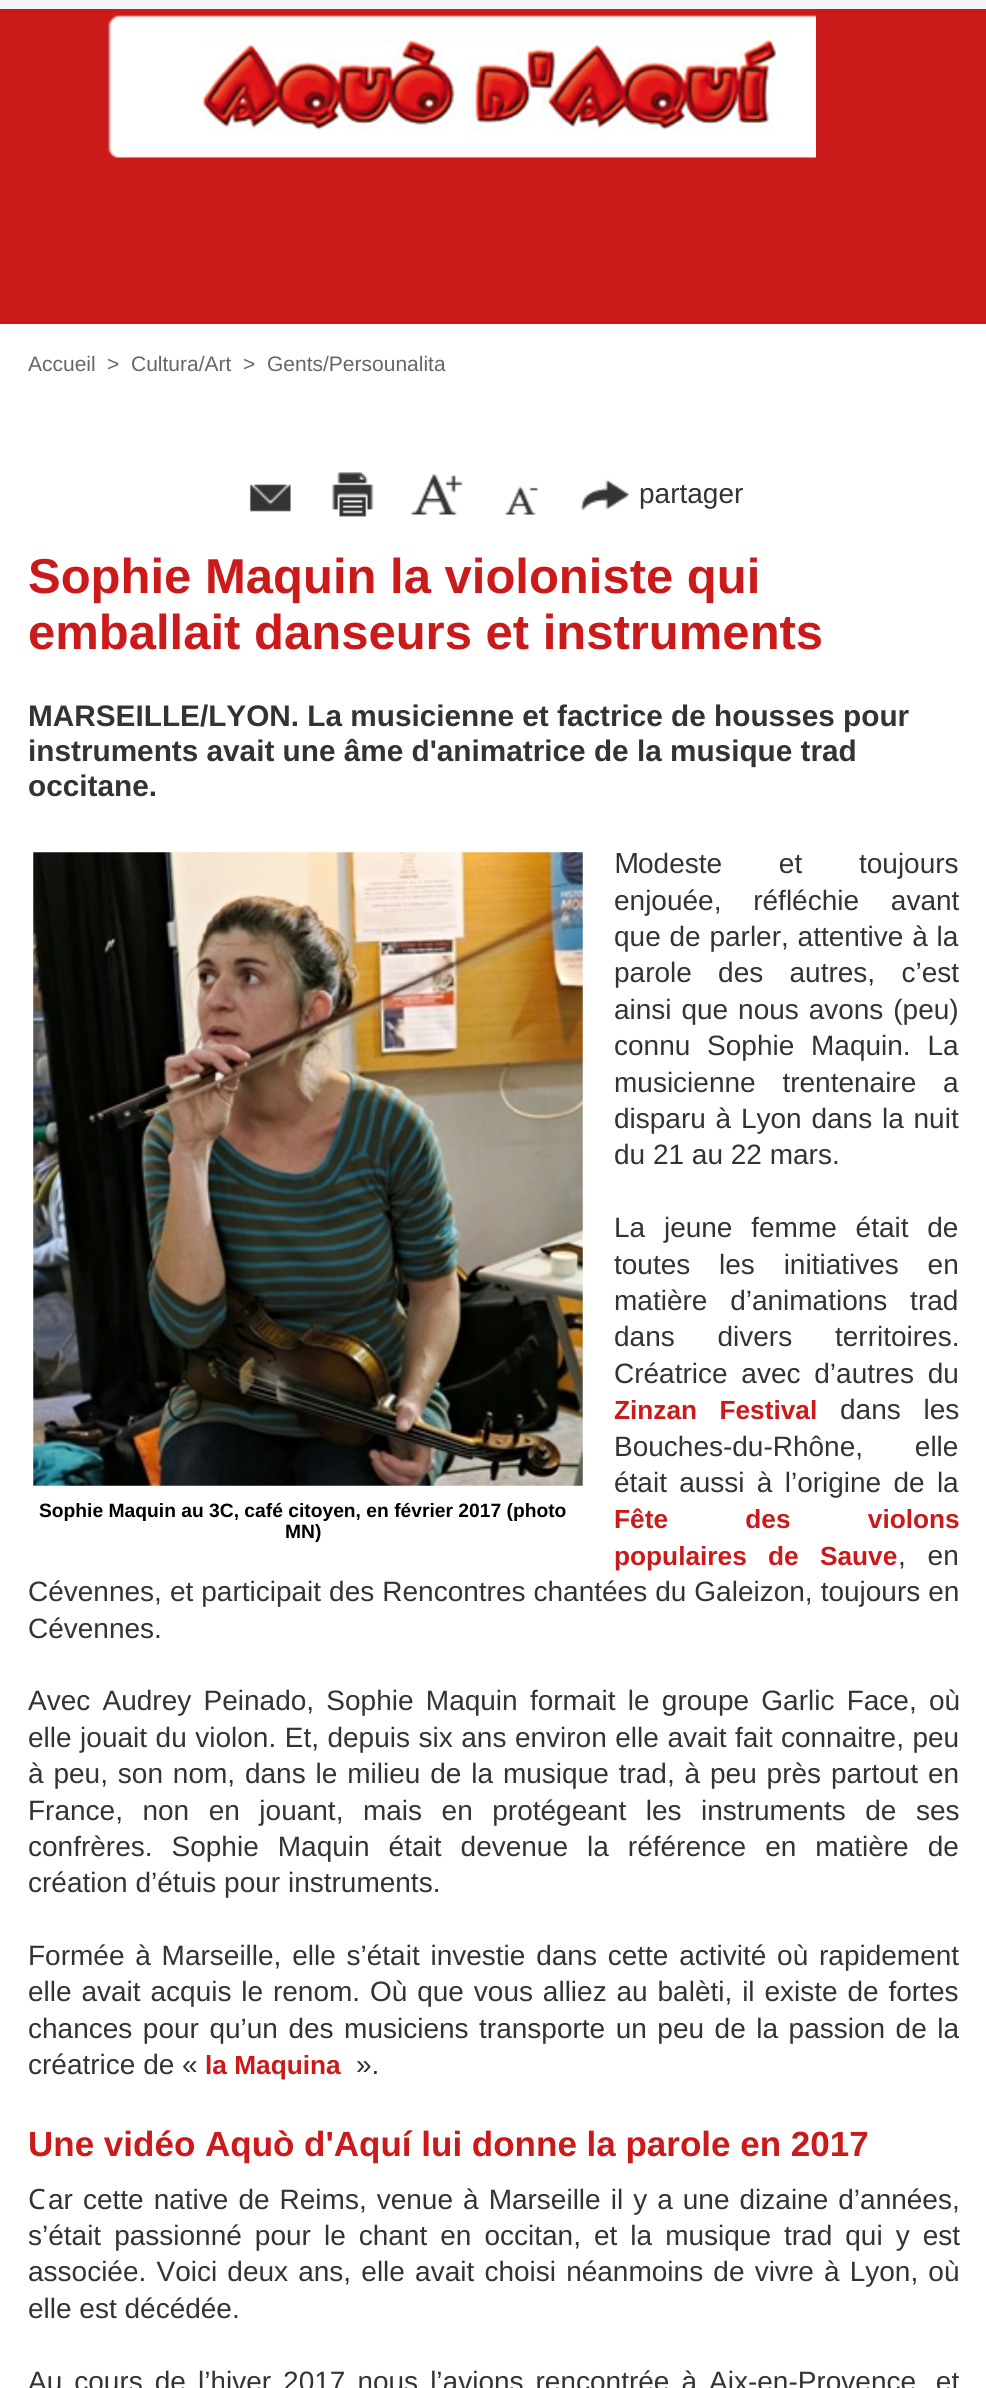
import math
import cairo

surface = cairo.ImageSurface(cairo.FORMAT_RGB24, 986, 2388)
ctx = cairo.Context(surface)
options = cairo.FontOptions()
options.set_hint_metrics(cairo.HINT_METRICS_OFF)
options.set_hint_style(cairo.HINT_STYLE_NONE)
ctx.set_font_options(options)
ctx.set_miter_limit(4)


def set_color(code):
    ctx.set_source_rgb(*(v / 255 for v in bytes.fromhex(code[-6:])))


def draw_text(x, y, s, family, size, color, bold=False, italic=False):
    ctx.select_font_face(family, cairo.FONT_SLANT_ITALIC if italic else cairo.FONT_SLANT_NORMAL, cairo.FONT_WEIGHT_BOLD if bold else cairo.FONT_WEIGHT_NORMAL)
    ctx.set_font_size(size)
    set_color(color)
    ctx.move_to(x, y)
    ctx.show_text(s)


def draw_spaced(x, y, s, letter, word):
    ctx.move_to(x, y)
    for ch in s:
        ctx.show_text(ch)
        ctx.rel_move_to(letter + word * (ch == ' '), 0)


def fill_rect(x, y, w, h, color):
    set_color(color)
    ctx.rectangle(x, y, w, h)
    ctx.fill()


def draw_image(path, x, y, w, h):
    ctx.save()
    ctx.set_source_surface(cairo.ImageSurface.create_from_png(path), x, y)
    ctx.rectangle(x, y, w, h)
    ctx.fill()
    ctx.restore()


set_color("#f4f4f4")
ctx.paint()
fill_rect(0, 9, 986, 315, "#ca1a1a")
draw_image("assets/img1.png", 108, 15, 708, 143)
fill_rect(0, 324, 986, 2064, "#ffffff")
draw_text(28, 371, "Accueil", "Liberation Sans", 21, "#666666")
draw_text(107, 371, ">", "Liberation Sans", 21, "#666666")
draw_text(131, 371, "Cultura/Art", "Liberation Sans", 21, "#666666")
draw_text(243, 371, ">", "Liberation Sans", 21, "#666666")
draw_text(267, 371, "Gents/Persounalita", "Liberation Sans", 21, "#666666")
draw_image("assets/img2.png", 249, 484, 42, 28)
draw_image("assets/img3.png", 332, 472, 42, 45)
draw_image("assets/img4.png", 411, 473, 52, 42)
draw_image("assets/img5.png", 505, 486, 33, 29)
draw_image("assets/img6.png", 580, 479, 50, 32)
draw_text(639, 503, "partager", "Liberation Sans", 28, "#333333")
draw_text(28, 593, "Sophie Maquin la violoniste qui", "Liberation Sans", 49, "#ca1a1a", bold=True)
draw_text(28, 649, "emballait danseurs et instruments", "Liberation Sans", 49, "#ca1a1a", bold=True)
draw_text(28, 726, "MARSEILLE/LYON. La musicienne et factrice de housses pour", "Liberation Sans", 29.75, "#333333", bold=True)
draw_text(28, 761, "instruments avait une âme d'animatrice de la musique trad", "Liberation Sans", 29.75, "#333333", bold=True)
draw_text(28, 796, "occitane.", "Liberation Sans", 29.75, "#333333", bold=True)
draw_text(614, 873, "M", "Noto Sans", 28, "#333333")
ctx.select_font_face("Liberation Sans")
draw_spaced(638, 873, "odeste et toujours", 0, 49)
draw_spaced(614, 910, "enjouée, réfléchie avant", 0, 24)
draw_spaced(614, 946, "que de parler, attentive à la", 0, 1)
draw_spaced(614, 982, "parole des autres, c’est", 0, 18.5)
draw_spaced(614, 1019, "ainsi que nous avons (peu)", 0, 2.1)
draw_spaced(614, 1055, "connu Sophie Maquin. La", 0, 9)
draw_spaced(614, 1092, "musicienne trentenaire a", 0, 19)
draw_spaced(614, 1128, "disparu à Lyon dans la nuit", 0, 2)
draw_text(614, 1164, "du 21 au 22 mars.", "Liberation Sans", 28, "#333333")
draw_spaced(614, 1237, "La jeune femme était de", 0, 11)
draw_spaced(614, 1274, "toutes les initiatives en", 0, 21)
draw_spaced(614, 1310, "matière d’animations trad", 0, 15)
draw_spaced(614, 1346, "dans divers territoires.", 0, 35)
draw_spaced(614, 1383, "Créatrice avec d’autres du", 0, 6)
ctx.select_font_face("Liberation Sans", cairo.FONT_SLANT_NORMAL, cairo.FONT_WEIGHT_BOLD)
ctx.set_font_size(26.25)
set_color("#ca1a1a")
draw_spaced(614, 1419, "Zinzan Festival", 0, 15)
ctx.select_font_face("Liberation Sans")
ctx.set_font_size(28)
set_color("#333333")
draw_spaced(840, 1419, "dans les", 0, 15)
draw_spaced(614, 1456, "Bouches-du-Rhône, elle", 0, 44)
draw_spaced(614, 1492, "était aussi à l’origine de la", 0, 4.5)
ctx.select_font_face("Liberation Sans", cairo.FONT_SLANT_NORMAL, cairo.FONT_WEIGHT_BOLD)
ctx.set_font_size(26.25)
set_color("#ca1a1a")
draw_spaced(614, 1528, "Fête des violons", 0, 70)
draw_spaced(614, 1565, "populaires de Sauve", 0, 14)
ctx.select_font_face("Liberation Sans")
ctx.set_font_size(28)
set_color("#333333")
draw_spaced(898, 1565, ", en", 0, 14)
draw_spaced(28, 1601, "Cévennes, et participait des Rencontres chantées du Galeizon, toujours en", 0, 0.25)
draw_text(28, 1638, "Cévennes.", "Liberation Sans", 28, "#333333")
draw_spaced(28, 1710, "Avec Audrey Peinado, Sophie Maquin formait le groupe Garlic Face, où", 0, 4.5)
draw_spaced(28, 1747, "elle jouait du violon. Et, depuis six ans environ elle avait fait connaitre, peu", 0, 0.75)
draw_spaced(28, 1783, "à peu, son nom, dans le milieu de la musique trad, à peu près partout en", 0, 2.1)
draw_spaced(28, 1820, "France, non en jouant, mais en protégeant les instruments de ses", 0, 11.75)
draw_spaced(28, 1856, "confrères. Sophie Maquin était devenue la référence en matière de", 0, 11.25)
draw_text(28, 1892, "création d’étuis pour instruments.", "Liberation Sans", 28, "#333333")
draw_spaced(28, 1965, "Formée à Marseille, elle s’était investie dans cette activité où rapidement", 0, 3)
draw_spaced(28, 2001, "elle avait acquis le renom. Où que vous alliez au balèti, il existe de fortes", 0, 2.1)
draw_spaced(28, 2038, "chances pour qu’un des musiciens transporte un peu de la passion de la", 0, 2.75)
draw_text(28, 2074, "créatrice de «", "Liberation Sans", 28, "#333333")
draw_text(205, 2074, "la Maquina", "Liberation Sans", 26.25, "#ca1a1a", bold=True)
draw_text(356, 2074, "».", "Liberation Sans", 28, "#333333")
draw_image("assets/img7.png", 33, 852, 550, 634)
draw_text(39, 1517, "Sophie Maquin au 3C, café citoyen, en février 2017 (photo", "Liberation Sans", 19.25, "#000000", bold=True)
draw_text(285, 1538, "MN)", "Liberation Sans", 19.25, "#000000", bold=True)
draw_text(28, 2156, "Une vidéo Aquò d'Aquí lui donne la parole en 2017", "Liberation Sans", 35, "#ca1a1a", bold=True)
draw_text(28, 2209, "C", "Noto Sans", 28, "#333333")
ctx.select_font_face("Liberation Sans")
draw_spaced(48, 2209, "ar cette native de Reims, venue à Marseille il y a une dizaine d’années,", 0, 2.25)
draw_spaced(28, 2245, "s’était passionné pour le chant en occitan, et la musique trad qui y est", 0, 5.25)
draw_spaced(28, 2281, "associée. Voici deux ans, elle avait choisi néanmoins de vivre à Lyon, où", 0, 2.4)
draw_text(28, 2318, "elle est décédée.", "Liberation Sans", 28, "#333333")
draw_spaced(28, 2391, "Au cours de l’hiver 2017 nous l’avions rencontrée à Aix-en-Provence, et", 0, 4.25)
surface.write_to_png("output.png")
